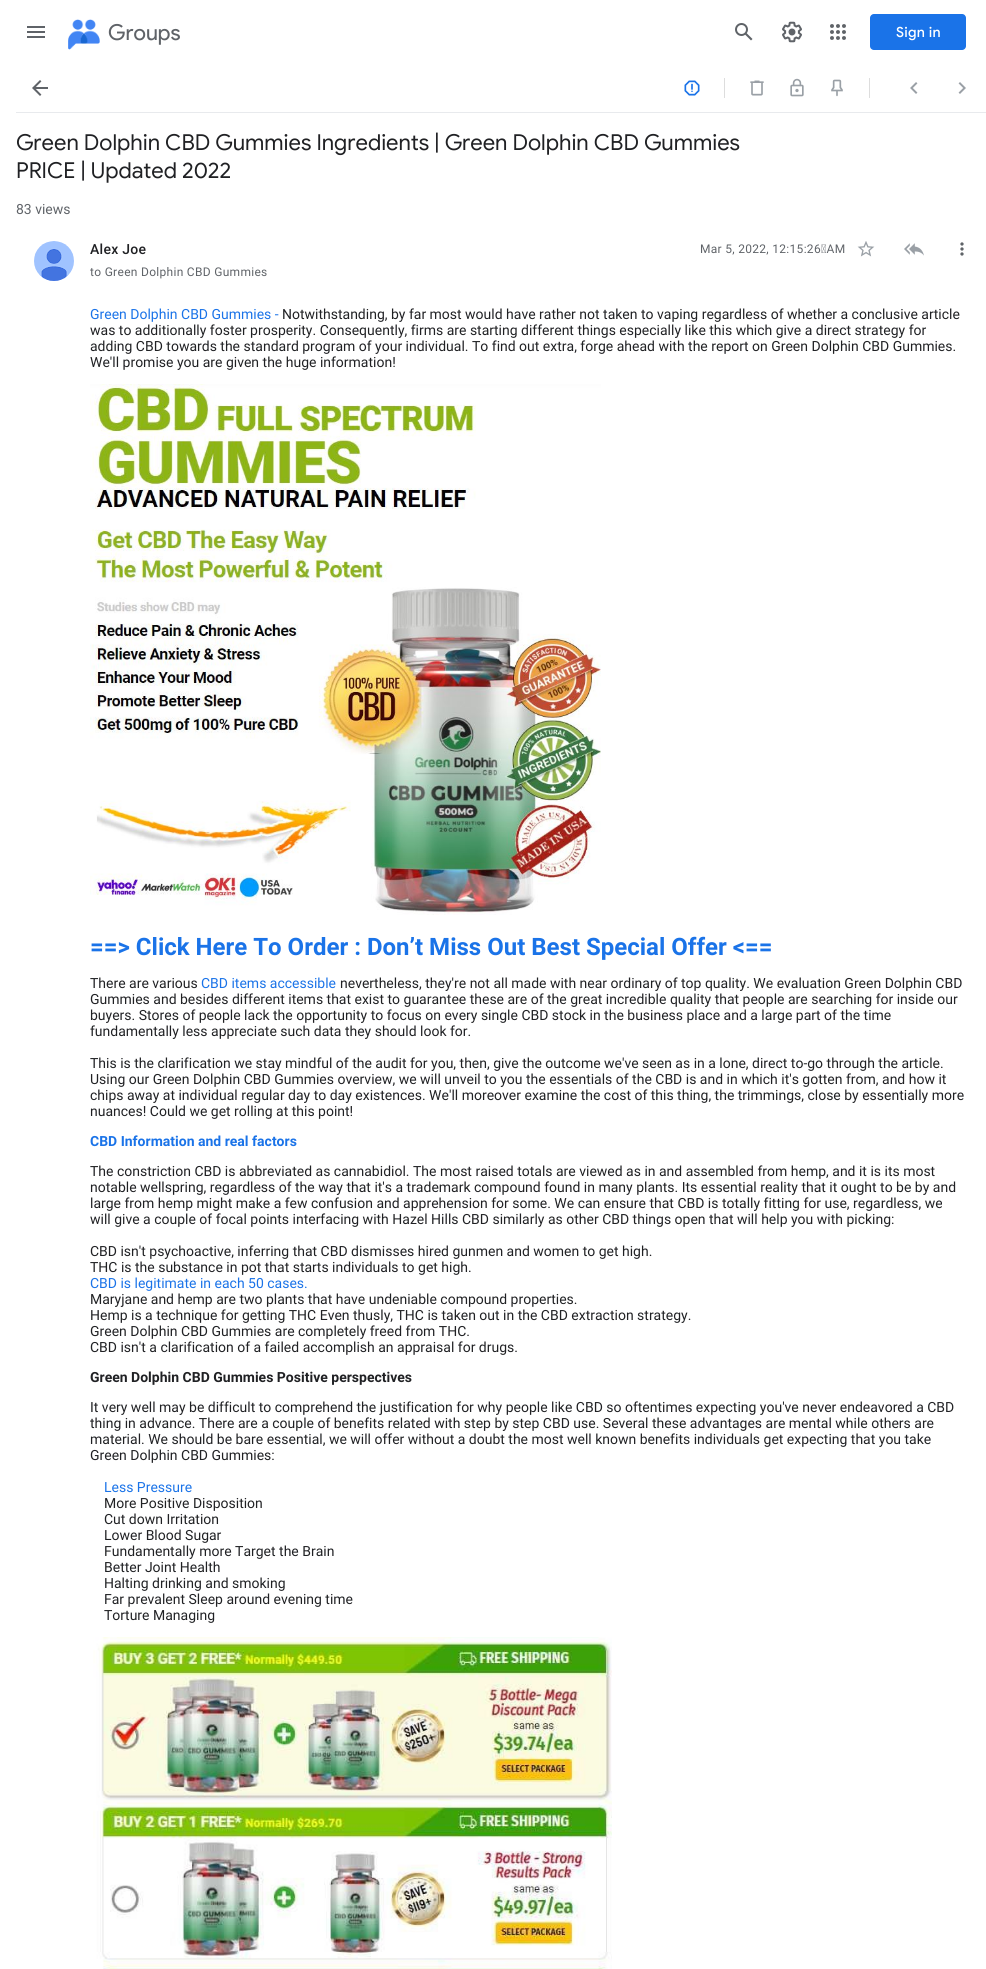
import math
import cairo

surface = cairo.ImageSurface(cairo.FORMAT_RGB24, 986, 1969)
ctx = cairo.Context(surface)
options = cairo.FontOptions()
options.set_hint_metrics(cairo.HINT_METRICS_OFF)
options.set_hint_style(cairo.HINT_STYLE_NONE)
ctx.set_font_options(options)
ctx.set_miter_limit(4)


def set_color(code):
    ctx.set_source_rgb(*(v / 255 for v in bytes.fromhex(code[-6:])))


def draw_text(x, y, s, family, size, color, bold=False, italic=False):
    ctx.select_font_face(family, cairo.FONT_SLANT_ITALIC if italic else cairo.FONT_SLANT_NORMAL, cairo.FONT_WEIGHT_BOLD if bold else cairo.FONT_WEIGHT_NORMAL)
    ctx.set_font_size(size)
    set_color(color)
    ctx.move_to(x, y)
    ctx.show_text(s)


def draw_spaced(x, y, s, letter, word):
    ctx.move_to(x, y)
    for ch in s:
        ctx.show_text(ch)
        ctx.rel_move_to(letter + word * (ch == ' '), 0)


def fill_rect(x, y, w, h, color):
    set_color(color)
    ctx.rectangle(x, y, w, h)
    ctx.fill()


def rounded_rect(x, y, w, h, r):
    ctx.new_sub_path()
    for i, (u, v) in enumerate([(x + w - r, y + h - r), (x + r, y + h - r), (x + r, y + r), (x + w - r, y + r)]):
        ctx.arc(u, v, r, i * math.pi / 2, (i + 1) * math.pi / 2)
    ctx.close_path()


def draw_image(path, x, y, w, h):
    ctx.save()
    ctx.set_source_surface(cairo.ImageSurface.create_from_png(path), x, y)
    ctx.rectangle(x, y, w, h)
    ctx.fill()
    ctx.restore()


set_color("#ffffff")
ctx.paint()
draw_image("assets/img1.png", 27, 26, 18, 12)
draw_image("assets/img2.png", 68, 19, 32, 31)
draw_text(108, 40, "Groups", "Product Sans", 22, "#5f6368")
draw_image("assets/img3.png", 735, 23, 18, 18)
draw_image("assets/img4.png", 782, 21, 20, 22)
draw_image("assets/img5.png", 830, 24, 16, 16)
set_color("#1a73e8")
rounded_rect(870, 14, 96, 36, 4)
ctx.fill()
ctx.select_font_face("Google Sans Medium")
ctx.set_font_size(14)
set_color("#ffffff")
draw_spaced(896, 37, "Sign in", 0.25, 0)
fill_rect(16, 112, 970, 1, "#e8eaed")
draw_image("assets/img6.png", 32, 80, 16, 16)
draw_image("assets/img7.png", 684, 80, 16, 16)
fill_rect(724, 78, 1, 20, "#dddddd")
draw_image("assets/img8.png", 750, 80, 14, 16)
draw_image("assets/img9.png", 790, 78, 14, 19)
draw_image("assets/img10.png", 831, 79, 12, 18)
fill_rect(869, 78, 1, 20, "#dddddd")
draw_image("assets/img11.png", 910, 82, 8, 12)
draw_image("assets/img12.png", 958, 82, 8, 12)
draw_text(16, 150, "Green Dolphin CBD Gummies Ingredients | Green Dolphin CBD Gummies", "Google Sans", 22, "#202124")
draw_text(16, 178, "PRICE | Updated 2022", "Google Sans", 22, "#202124")
draw_text(16, 214, "83 views", "Roboto", 14, "#5f6368")
draw_image("assets/img13.png", 34, 241, 40, 40)
ctx.select_font_face("Roboto Medium")
set_color("#202124")
draw_spaced(90, 254, "Alex Joe", 0.25, 0)
ctx.select_font_face("Roboto")
ctx.set_font_size(12)
set_color("#5f6368")
draw_spaced(700, 253, "Mar 5, 2022, 12:15:26 AM", 0.3, 0)
draw_image("assets/img14.png", 857, 241, 18, 16)
draw_image("assets/img15.png", 904, 243, 20, 13)
draw_image("assets/img16.png", 960, 242, 4, 14)
draw_spaced(90, 276, "to Green Dolphin CBD Gummies", 0.3, 0)
draw_text(90, 319, "Green Dolphin CBD Gummies -", "Roboto", 14, "#1a73e8")
draw_text(282, 319, "Notwithstanding, by far most would have rather not taken to vaping regardless of whether a conclusive article", "Roboto", 14, "#202124")
draw_text(90, 335, "was to additionally foster prosperity. Consequently, firms are starting different things especially like this which give a direct strategy for", "Roboto", 14, "#202124")
draw_text(90, 351, "adding CBD towards the standard program of your individual. To find out extra, forge ahead with the report on Green Dolphin CBD Gummies.", "Roboto", 14, "#202124")
draw_text(90, 367, "We'll promise you are given the huge information!", "Roboto", 14, "#202124")
draw_image("assets/img17.png", 90, 384, 511, 531)
draw_text(90, 955, "==> Click Here To Order : Don’t Miss Out Best Special Offer <==", "Roboto", 24, "#1a73e8", bold=True)
draw_text(90, 988, "There are various", "Roboto", 14, "#202124")
draw_text(201, 988, "CBD items accessible", "Roboto", 14, "#1a73e8")
draw_text(340, 988, "nevertheless, they're not all made with near ordinary of top quality. We evaluation Green Dolphin CBD", "Roboto", 14, "#202124")
draw_text(90, 1004, "Gummies and besides different items that exist to guarantee these are of the great incredible quality that people are searching for inside our", "Roboto", 14, "#202124")
draw_text(90, 1020, "buyers. Stores of people lack the opportunity to focus on every single CBD stock in the business place and a large part of the time", "Roboto", 14, "#202124")
draw_text(90, 1036, "fundamentally less appreciate such data they should look for.", "Roboto", 14, "#202124")
draw_text(90, 1068, "This is the clarification we stay mindful of the audit for you, then, give the outcome we've seen as in a lone, direct to-go through the article.", "Roboto", 14, "#202124")
draw_text(90, 1084, "Using our Green Dolphin CBD Gummies overview, we will unveil to you the essentials of the CBD is and in which it's gotten from, and how it", "Roboto", 14, "#202124")
draw_text(90, 1100, "chips away at individual regular day to day existences. We'll moreover examine the cost of this thing, the trimmings, close by essentially more", "Roboto", 14, "#202124")
draw_text(90, 1116, "nuances! Could we get rolling at this point!", "Roboto", 14, "#202124")
draw_text(90, 1146, "CBD Information and real factors", "Roboto", 14, "#1a73e8", bold=True)
draw_text(90, 1176, "The constriction CBD is abbreviated as cannabidiol. The most raised totals are viewed as in and assembled from hemp, and it is its most", "Roboto", 14, "#202124")
draw_text(90, 1192, "notable wellspring, regardless of the way that it's a trademark compound found in many plants. Its essential reality that it ought to be by and", "Roboto", 14, "#202124")
draw_text(90, 1208, "large from hemp might make a few confusion and apprehension for some. We can ensure that CBD is totally fitting for use, regardless, we", "Roboto", 14, "#202124")
draw_text(90, 1224, "will give a couple of focal points interfacing with Hazel Hills CBD similarly as other CBD things open that will help you with picking:", "Roboto", 14, "#202124")
draw_text(90, 1256, "CBD isn't psychoactive, inferring that CBD dismisses hired gunmen and women to get high.", "Roboto", 14, "#202124")
draw_text(90, 1272, "THC is the substance in pot that starts individuals to get high.", "Roboto", 14, "#202124")
draw_text(90, 1288, "CBD is legitimate in each 50 cases.", "Roboto", 14, "#1a73e8")
draw_text(90, 1304, "Maryjane and hemp are two plants that have undeniable compound properties.", "Roboto", 14, "#202124")
draw_text(90, 1320, "Hemp is a technique for getting THC Even thusly, THC is taken out in the CBD extraction strategy.", "Roboto", 14, "#202124")
draw_text(90, 1336, "Green Dolphin CBD Gummies are completely freed from THC.", "Roboto", 14, "#202124")
draw_text(90, 1352, "CBD isn't a clarification of a failed accomplish an appraisal for drugs.", "Roboto", 14, "#202124")
draw_text(90, 1382, "Green Dolphin CBD Gummies Positive perspectives", "Roboto", 14, "#202124", bold=True)
draw_text(90, 1412, "It very well may be difficult to comprehend the justification for why people like CBD so oftentimes expecting you've never endeavored a CBD", "Roboto", 14, "#202124")
draw_text(90, 1428, "thing in advance. There are a couple of benefits related with step by step CBD use. Several these advantages are mental while others are", "Roboto", 14, "#202124")
draw_text(90, 1444, "material. We should be bare essential, we will offer without a doubt the most well known benefits individuals get expecting that you take", "Roboto", 14, "#202124")
draw_text(90, 1460, "Green Dolphin CBD Gummies:", "Roboto", 14, "#202124")
draw_text(104, 1492, "Less Pressure", "Roboto", 14, "#1a73e8")
draw_text(104, 1508, "More Positive Disposition", "Roboto", 14, "#202124")
draw_text(104, 1524, "Cut down Irritation", "Roboto", 14, "#202124")
draw_text(104, 1540, "Lower Blood Sugar", "Roboto", 14, "#202124")
draw_text(104, 1556, "Fundamentally more Target the Brain", "Roboto", 14, "#202124")
draw_text(104, 1572, "Better Joint Health", "Roboto", 14, "#202124")
draw_text(104, 1588, "Halting drinking and smoking", "Roboto", 14, "#202124")
draw_text(104, 1604, "Far prevalent Sleep around evening time", "Roboto", 14, "#202124")
draw_text(104, 1620, "Torture Managing", "Roboto", 14, "#202124")
draw_image("assets/img18.png", 93, 1637, 519, 332)
surface.write_to_png("output.png")
